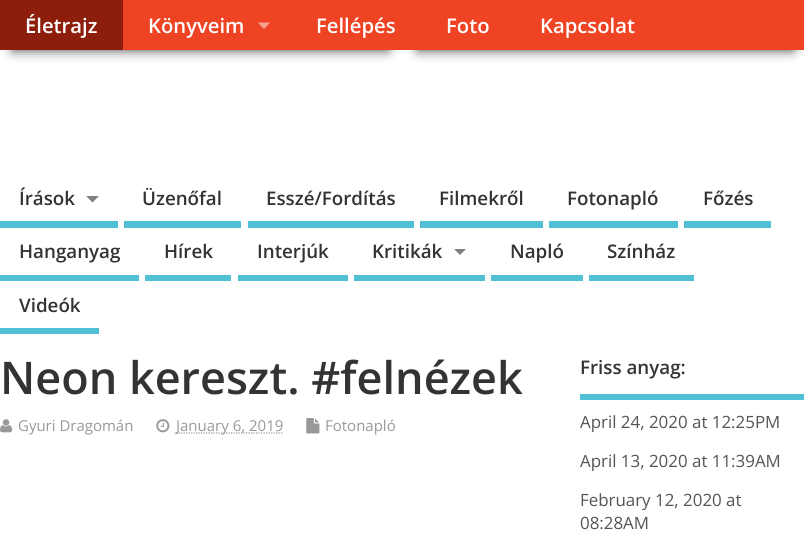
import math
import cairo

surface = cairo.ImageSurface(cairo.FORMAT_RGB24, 804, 544)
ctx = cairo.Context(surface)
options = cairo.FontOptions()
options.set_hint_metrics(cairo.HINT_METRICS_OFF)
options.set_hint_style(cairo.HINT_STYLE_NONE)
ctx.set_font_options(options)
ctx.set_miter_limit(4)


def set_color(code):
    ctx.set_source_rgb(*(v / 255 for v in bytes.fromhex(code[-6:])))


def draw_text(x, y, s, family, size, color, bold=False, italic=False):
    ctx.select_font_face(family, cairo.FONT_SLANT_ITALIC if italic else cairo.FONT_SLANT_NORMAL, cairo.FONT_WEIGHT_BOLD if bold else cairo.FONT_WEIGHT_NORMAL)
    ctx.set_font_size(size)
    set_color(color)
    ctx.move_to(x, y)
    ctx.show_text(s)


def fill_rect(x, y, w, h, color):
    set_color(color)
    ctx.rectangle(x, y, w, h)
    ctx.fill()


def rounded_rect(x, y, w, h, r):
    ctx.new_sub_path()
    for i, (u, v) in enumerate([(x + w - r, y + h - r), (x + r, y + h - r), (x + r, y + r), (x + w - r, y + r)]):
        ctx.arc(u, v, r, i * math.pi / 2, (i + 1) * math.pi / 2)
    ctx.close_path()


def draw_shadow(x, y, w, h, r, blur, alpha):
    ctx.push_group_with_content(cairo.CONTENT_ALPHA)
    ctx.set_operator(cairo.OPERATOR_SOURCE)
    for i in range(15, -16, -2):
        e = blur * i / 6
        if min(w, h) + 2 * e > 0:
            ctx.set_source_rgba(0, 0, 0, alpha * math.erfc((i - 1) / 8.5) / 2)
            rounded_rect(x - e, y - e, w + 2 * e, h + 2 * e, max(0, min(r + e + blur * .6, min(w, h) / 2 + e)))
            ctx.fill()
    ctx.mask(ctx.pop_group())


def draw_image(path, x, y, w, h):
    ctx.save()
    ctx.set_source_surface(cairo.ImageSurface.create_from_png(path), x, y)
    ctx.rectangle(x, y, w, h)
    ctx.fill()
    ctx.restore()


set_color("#ffffff")
ctx.paint()
set_color("#000000")
draw_shadow(13, 40, 375, 10, 0, 6, 0.75)
draw_shadow(418, 40, 375, 10, 0, 6, 0.75)
fill_rect(123, 0, 681, 50, "#ef4423")
fill_rect(0, 0, 123, 50, "#8e1e0c")
draw_text(25, 33, "Életrajz", "Open Sans SemiBold", 20.25, "#ffffff")
draw_text(148, 33, "Könyveim", "Open Sans SemiBold", 20.25, "#ffffff")
set_color("#f7a291")
ctx.new_path()
ctx.move_to(257.5, 22.5)
ctx.line_to(270, 22.5)
ctx.line_to(264, 29)
ctx.close_path()
ctx.fill()
draw_text(316, 33, "Fellépés", "Open Sans SemiBold", 20.25, "#ffffff")
draw_text(446, 33, "Foto", "Open Sans SemiBold", 20.25, "#ffffff")
draw_text(540, 33, "Kapcsolat", "Open Sans SemiBold", 20.25, "#ffffff")
fill_rect(0, 221, 118, 7, "#52c0d4")
draw_text(19, 205, "Írások", "Open Sans SemiBold", 18.75, "#333333")
set_color("#808080")
ctx.new_path()
ctx.move_to(86, 196)
ctx.line_to(99, 196)
ctx.line_to(92.5, 202.5)
ctx.close_path()
ctx.fill()
fill_rect(124, 221, 117, 7, "#52c0d4")
draw_text(142, 205, "Üzenőfal", "Open Sans SemiBold", 18.75, "#333333")
fill_rect(248, 221, 166, 7, "#52c0d4")
draw_text(266, 205, "Esszé/Fordítás", "Open Sans SemiBold", 18.75, "#333333")
fill_rect(420, 221, 123, 7, "#52c0d4")
draw_text(439, 205, "Filmekről", "Open Sans SemiBold", 18.75, "#333333")
fill_rect(549, 221, 129, 7, "#52c0d4")
draw_text(567, 205, "Fotonapló", "Open Sans SemiBold", 18.75, "#333333")
fill_rect(684, 221, 87, 7, "#52c0d4")
draw_text(703, 205, "Főzés", "Open Sans SemiBold", 18.75, "#333333")
fill_rect(0, 275, 139, 6, "#52c0d4")
draw_text(19, 258, "Hanganyag", "Open Sans SemiBold", 18.75, "#333333")
fill_rect(145, 275, 86, 6, "#52c0d4")
draw_text(164, 258, "Hírek", "Open Sans SemiBold", 18.75, "#333333")
fill_rect(238, 275, 110, 6, "#52c0d4")
draw_text(257, 258, "Interjúk", "Open Sans SemiBold", 18.75, "#333333")
fill_rect(354, 275, 131, 6, "#52c0d4")
draw_text(372, 258, "Kritikák", "Open Sans SemiBold", 18.75, "#333333")
set_color("#808080")
ctx.new_path()
ctx.move_to(454, 249)
ctx.line_to(466, 249)
ctx.line_to(460, 255)
ctx.close_path()
ctx.fill()
fill_rect(491, 275, 92, 6, "#52c0d4")
draw_text(510, 258, "Napló", "Open Sans SemiBold", 18.75, "#333333")
fill_rect(589, 275, 105, 6, "#52c0d4")
draw_text(607, 258, "Színház", "Open Sans SemiBold", 18.75, "#333333")
fill_rect(0, 328, 99, 6, "#52c0d4")
draw_text(19, 312, "Videók", "Open Sans SemiBold", 18.75, "#333333")
draw_text(0, 394, "Neon kereszt. #felnézek", "Open Sans SemiBold", 45, "#333333")
draw_image("assets/img1.png", 0, 419, 13, 14)
draw_text(18, 431, "Gyuri Dragomán", "Open Sans", 15, "#999999")
draw_image("assets/img2.png", 156, 419, 14, 14)
ctx.new_path()
ctx.move_to(176, 433)
ctx.line_to(283, 433)
ctx.set_line_width(1.2)
ctx.set_dash([1.25, 1.25])
ctx.stroke()
draw_text(176, 431, "January 6, 2019", "Open Sans", 15, "#999999")
draw_image("assets/img3.png", 306, 418, 14, 16)
draw_text(325, 431, "Fotonapló", "Open Sans", 15, "#999999")
fill_rect(580, 394, 224, 6, "#52c0d4")
draw_text(580, 374, "Friss anyag:", "Open Sans SemiBold", 18.75, "#333333")
draw_text(580, 428, "April 24, 2020 at 12:25PM", "Open Sans", 16.9, "#555555")
draw_text(580, 467, "April 13, 2020 at 11:39AM", "Open Sans", 16.9, "#555555")
draw_text(580, 506, "February 12, 2020 at", "Open Sans", 16.9, "#555555")
draw_text(580, 529, "08:28AM", "Open Sans", 16.9, "#555555")
surface.write_to_png("output.png")
